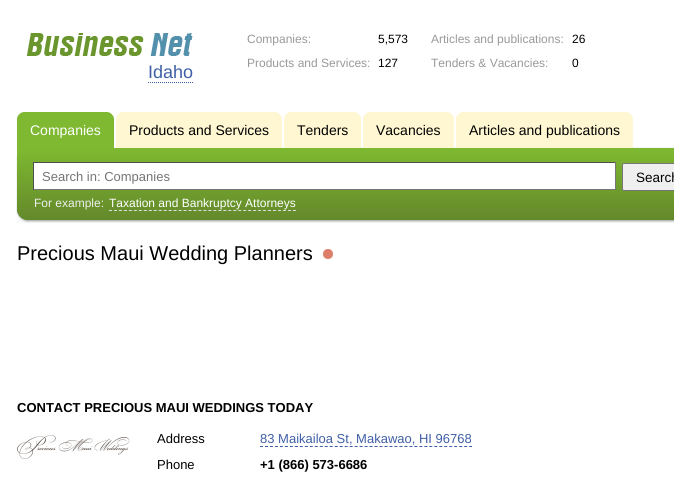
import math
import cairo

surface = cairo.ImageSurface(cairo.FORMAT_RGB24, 674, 483)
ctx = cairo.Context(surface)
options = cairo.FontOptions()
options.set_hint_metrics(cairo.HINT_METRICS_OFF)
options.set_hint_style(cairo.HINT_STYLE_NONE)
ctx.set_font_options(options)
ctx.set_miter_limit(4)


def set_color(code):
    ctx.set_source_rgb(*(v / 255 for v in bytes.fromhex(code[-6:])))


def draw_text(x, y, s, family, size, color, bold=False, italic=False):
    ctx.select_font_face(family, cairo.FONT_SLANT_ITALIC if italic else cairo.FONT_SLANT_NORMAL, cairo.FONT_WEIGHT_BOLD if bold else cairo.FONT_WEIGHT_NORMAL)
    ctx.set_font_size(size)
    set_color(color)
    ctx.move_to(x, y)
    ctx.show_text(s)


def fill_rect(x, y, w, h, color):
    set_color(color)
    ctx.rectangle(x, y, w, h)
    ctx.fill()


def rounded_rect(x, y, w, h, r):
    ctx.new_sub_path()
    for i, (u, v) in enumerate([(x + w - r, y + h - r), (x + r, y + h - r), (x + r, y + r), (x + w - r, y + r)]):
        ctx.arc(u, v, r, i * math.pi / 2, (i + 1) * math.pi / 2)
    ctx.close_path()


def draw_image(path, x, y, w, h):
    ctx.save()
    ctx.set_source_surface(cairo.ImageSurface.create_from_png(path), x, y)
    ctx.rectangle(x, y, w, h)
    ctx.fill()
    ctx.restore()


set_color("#ffffff")
ctx.paint()
draw_text(247, 43, "Companies:", "Liberation Sans", 12, "#999999")
draw_text(378, 43, "5,573", "Liberation Sans", 12, "#000000")
draw_text(247, 67, "Products and Services:", "Liberation Sans", 12, "#999999")
draw_text(378, 67, "127", "Liberation Sans", 12, "#000000")
draw_text(431, 43, "Articles and publications:", "Liberation Sans", 12, "#999999")
draw_text(572, 43, "26", "Liberation Sans", 12, "#000000")
draw_text(431, 67, "Tenders & Vacancies:", "Liberation Sans", 12, "#999999")
draw_text(572, 67, "0", "Liberation Sans", 12, "#000000")
draw_text(148, 78, "Idaho", "Liberation Sans", 18, "#3f5fa6")
draw_image("assets/img1.png", 26, 33, 167, 32)
ctx.new_path()
ctx.move_to(148, 82.5)
ctx.line_to(193, 82.5)
ctx.set_line_width(1)
ctx.set_dash([1, 1])
ctx.stroke()
draw_image("assets/img6.png", 17, 147, 657, 76)
fill_rect(17, 112, 97, 36, "#7eb931")
draw_image("assets/img2.png", 108, 112, 6, 6)
draw_image("assets/img3.png", 17, 112, 6, 6)
draw_text(30, 135, "Companies", "Liberation Sans", 14, "#ffffff")
fill_rect(116, 112, 166, 36, "#fff7d1")
draw_image("assets/img4.png", 276, 112, 6, 6)
draw_image("assets/img5.png", 116, 112, 6, 6)
draw_text(129, 135, "Products and Services", "Liberation Sans", 14, "#000000")
fill_rect(284, 112, 77, 36, "#fff7d1")
draw_image("assets/img4.png", 355, 112, 6, 6)
draw_image("assets/img5.png", 284, 112, 6, 6)
draw_text(297, 135, "Tenders", "Liberation Sans", 14, "#000000")
fill_rect(363, 112, 91, 36, "#fff7d1")
draw_image("assets/img4.png", 448, 112, 6, 6)
draw_image("assets/img5.png", 363, 112, 6, 6)
draw_text(376, 135, "Vacancies", "Liberation Sans", 14, "#000000")
fill_rect(456, 112, 177, 36, "#fff7d1")
draw_image("assets/img4.png", 627, 112, 6, 6)
draw_image("assets/img5.png", 456, 112, 6, 6)
draw_text(469, 135, "Articles and publications", "Liberation Sans", 14, "#000000")
draw_image("assets/img7.png", 16, 156, 11, 67)
fill_rect(34, 163, 581, 26, "#ffffff")
fill_rect(33, 162, 583, 1, "#4f4f4f")
fill_rect(615, 162, 1, 28, "#767676")
fill_rect(33, 189, 583, 1, "#767676")
fill_rect(33, 162, 1, 28, "#4f4f4f")
draw_text(42, 181, "Search in: Companies", "Liberation Sans", 13, "#757575")
set_color("#efefef")
rounded_rect(622.5, 163.5, 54, 27, 1.5)
ctx.fill_preserve()
set_color("#767676")
ctx.set_dash([])
ctx.stroke()
draw_text(636, 182, "Search", "Liberation Sans", 13.5, "#000000")
draw_text(34, 207, "For example:", "Liberation Sans", 12, "#eeeeee")
draw_text(109, 207, "Taxation and Bankruptcy Attorneys", "Liberation Sans", 12, "#ffffff")
ctx.new_path()
ctx.move_to(109, 210.5)
ctx.line_to(296, 210.5)
set_color("#dddddd")
ctx.set_dash([3, 1.97])
ctx.stroke()
draw_text(17, 260, "Precious Maui Wedding Planners", "Liberation Sans", 20, "#000000")
set_color("#dd7e6b")
ctx.new_path()
ctx.arc(328, 254, 5, 0, 2 * math.pi)
ctx.fill()
draw_text(17, 412, "CONTACT PRECIOUS MAUI WEDDINGS TODAY", "Liberation Sans", 13, "#000000", bold=True)
draw_image("assets/img8.png", 17, 435, 113, 24)
draw_text(157, 443, "Address", "Liberation Sans", 13, "#000000")
draw_text(260, 443, "83 Maikailoa St, Makawao, HI 96768", "Liberation Sans", 13, "#3f5fa6")
ctx.new_path()
ctx.move_to(260, 446.5)
ctx.line_to(472, 446.5)
ctx.set_dash([3, 1.98])
ctx.stroke()
draw_text(157, 469, "Phone", "Liberation Sans", 13, "#000000")
draw_text(260, 469, "+1 (866) 573-6686", "Liberation Sans", 13, "#000000", bold=True)
surface.write_to_png("output.png")
